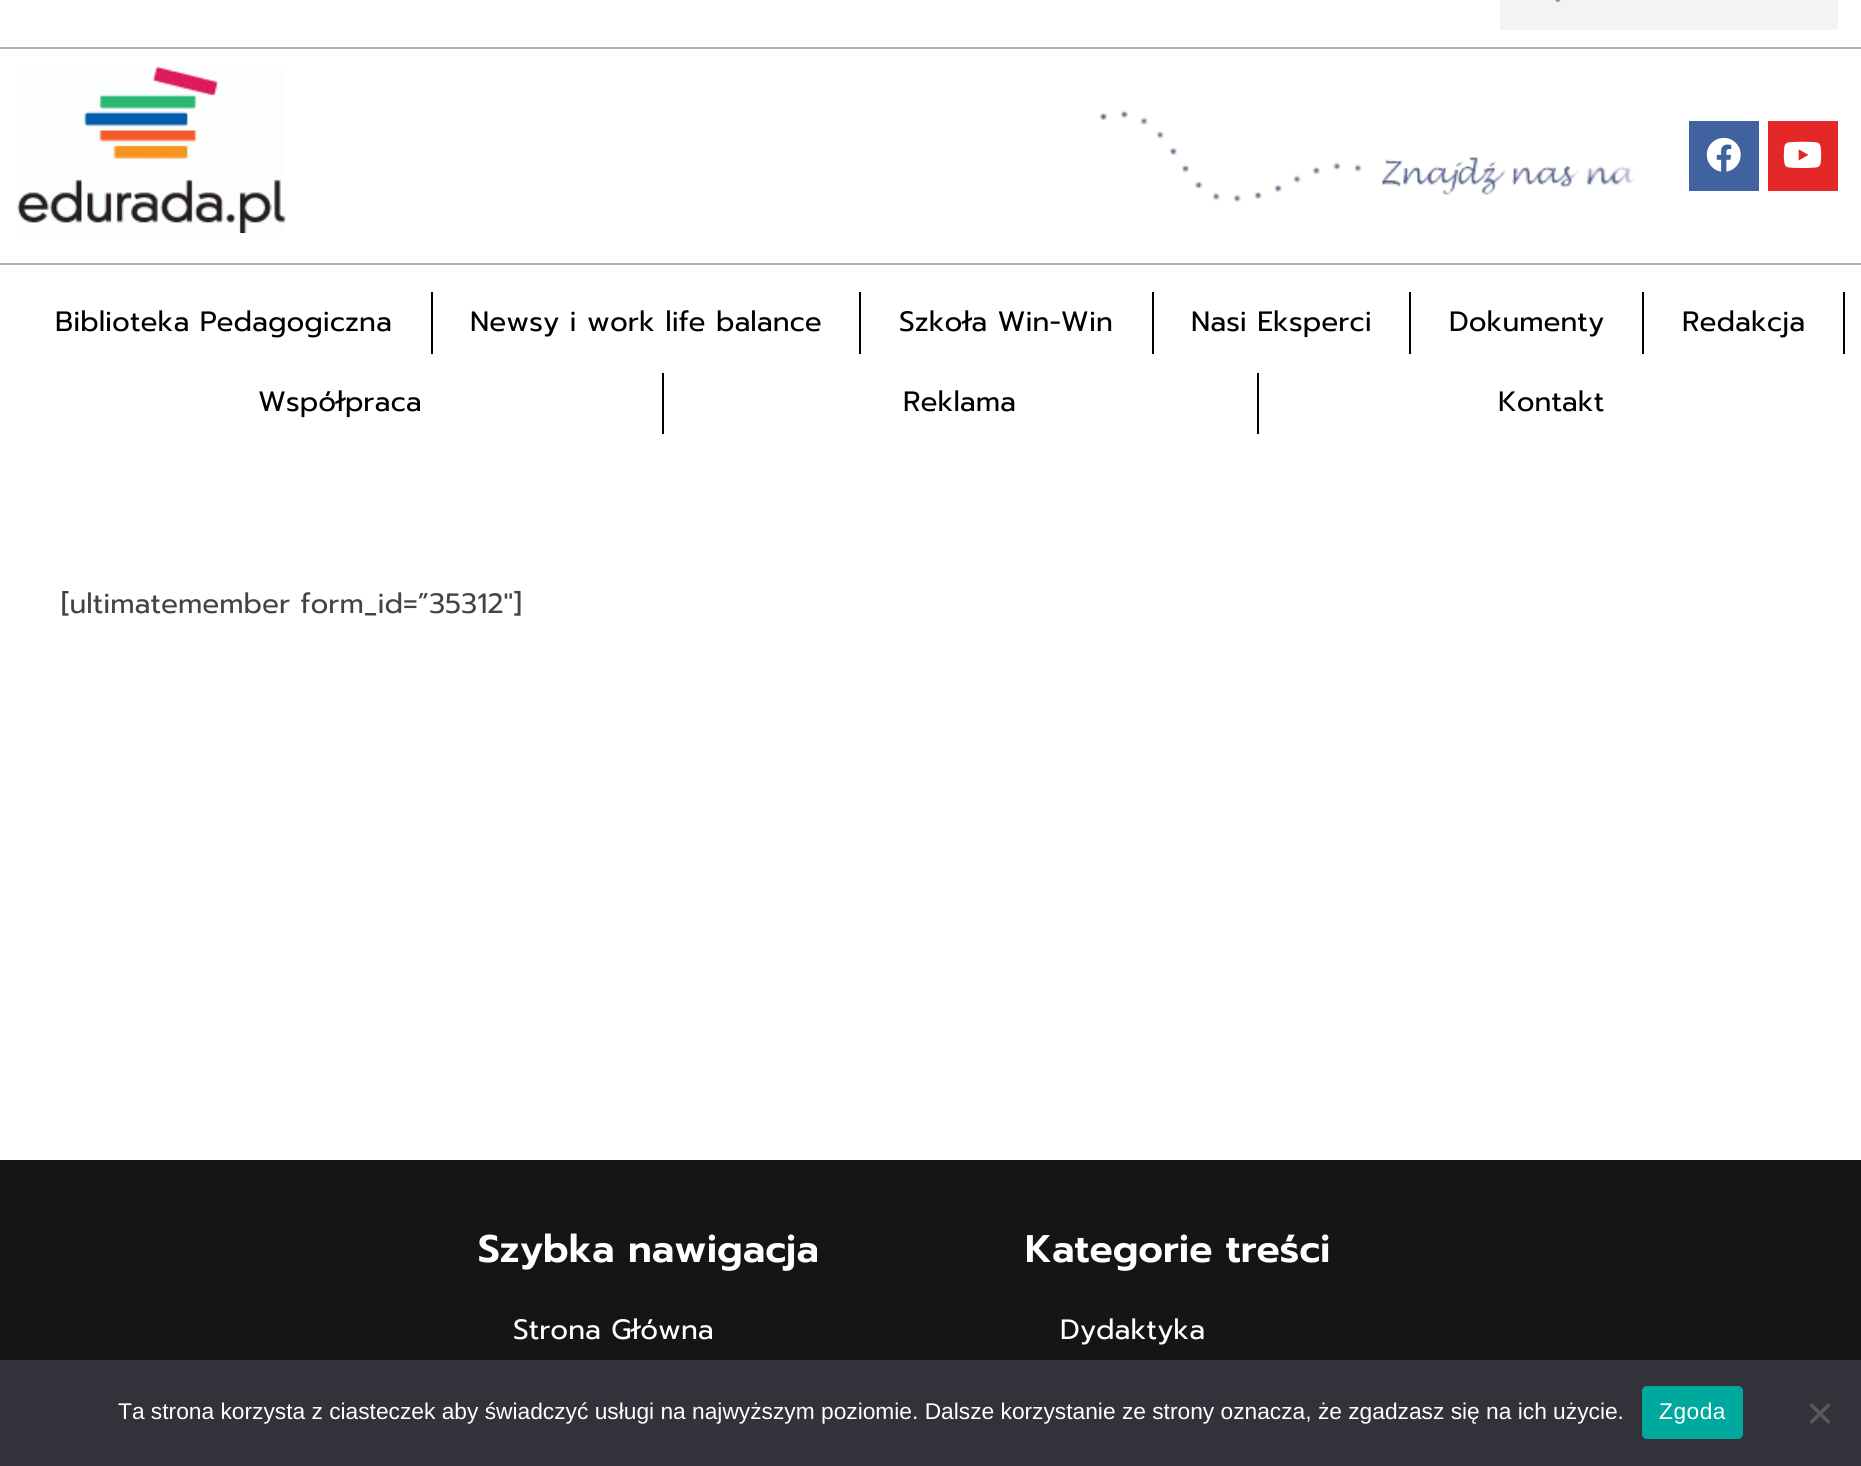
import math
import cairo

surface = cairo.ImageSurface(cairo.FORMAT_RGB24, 1861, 1466)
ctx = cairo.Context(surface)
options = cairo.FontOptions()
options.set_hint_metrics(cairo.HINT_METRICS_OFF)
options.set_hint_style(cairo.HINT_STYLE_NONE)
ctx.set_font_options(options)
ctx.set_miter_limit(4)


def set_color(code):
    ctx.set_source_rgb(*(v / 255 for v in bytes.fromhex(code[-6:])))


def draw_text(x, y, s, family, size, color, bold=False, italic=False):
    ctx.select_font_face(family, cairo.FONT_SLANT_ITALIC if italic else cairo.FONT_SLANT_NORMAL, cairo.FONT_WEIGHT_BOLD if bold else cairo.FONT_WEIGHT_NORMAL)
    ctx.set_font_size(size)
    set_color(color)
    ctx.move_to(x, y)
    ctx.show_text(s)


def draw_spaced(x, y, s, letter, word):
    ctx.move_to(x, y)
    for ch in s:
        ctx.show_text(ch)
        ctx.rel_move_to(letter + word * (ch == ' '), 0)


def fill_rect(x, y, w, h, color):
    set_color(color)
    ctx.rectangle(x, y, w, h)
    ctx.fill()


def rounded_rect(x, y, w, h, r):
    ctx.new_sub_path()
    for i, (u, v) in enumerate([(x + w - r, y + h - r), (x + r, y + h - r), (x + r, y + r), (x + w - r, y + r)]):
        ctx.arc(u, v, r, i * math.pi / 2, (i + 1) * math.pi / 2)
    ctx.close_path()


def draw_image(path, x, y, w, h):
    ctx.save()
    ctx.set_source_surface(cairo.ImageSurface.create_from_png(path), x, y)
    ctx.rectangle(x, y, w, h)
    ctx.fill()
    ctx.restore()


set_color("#ffffff")
ctx.paint()
fill_rect(0, 47, 1861, 2, "#b1b0b0")
fill_rect(1500, 0, 338, 30, "#f3f3f3")
draw_image("assets/img1.png", 1555, 0, 6, 3)
fill_rect(0, 263, 1861, 2, "#b1b0b0")
draw_image("assets/img2.png", 17, 66, 269, 167)
draw_image("assets/img3.png", 1099, 110, 542, 92)
fill_rect(1689, 121, 70, 70, "#40629f")
draw_image("assets/img4.png", 1706, 137, 35, 35)
fill_rect(1768, 121, 70, 70, "#e42828")
draw_image("assets/img5.png", 1783, 141, 39, 27)
draw_text(55, 331, "Biblioteka Pedagogiczna", "Prompt", 28, "#000000")
fill_rect(431, 292, 2, 62, "#000000")
draw_text(470, 331, "Newsy i work life balance", "Prompt", 28, "#000000")
fill_rect(859, 292, 2, 62, "#000000")
draw_text(899, 331, "Szkoła Win-Win", "Prompt", 28, "#000000")
fill_rect(1152, 292, 2, 62, "#000000")
draw_text(1191, 331, "Nasi Eksperci", "Prompt", 28, "#000000")
fill_rect(1409, 292, 2, 62, "#000000")
draw_text(1449, 331, "Dokumenty", "Prompt", 28, "#000000")
fill_rect(1642, 292, 2, 62, "#000000")
draw_text(1682, 331, "Redakcja", "Prompt", 28, "#000000")
fill_rect(1843, 292, 2, 62, "#000000")
draw_text(258, 411, "Współpraca", "Prompt", 28, "#000000")
fill_rect(662, 373, 2, 61, "#000000")
draw_text(903, 411, "Reklama", "Prompt", 28, "#000000")
fill_rect(1257, 373, 2, 61, "#000000")
draw_text(1498, 411, "Kontakt", "Prompt", 28, "#000000")
draw_text(61, 613, "[ultimatemember form_id=”35312″]", "Prompt", 28, "#444444")
fill_rect(0, 1160, 1861, 200, "#151515")
draw_text(478, 1262, "Szybka nawigacja", "Prompt SemiBold", 38.5, "#ffffff")
draw_text(513, 1339, "Strona Główna", "Prompt", 28, "#ffffff")
draw_text(1025, 1262, "Kategorie treści", "Prompt SemiBold", 38.5, "#ffffff")
draw_text(1060, 1339, "Dydaktyka", "Prompt", 28, "#ffffff")
fill_rect(0, 1360, 1861, 106, "#32323a")
draw_text(118, 1419, "Ta strona korzysta z ciasteczek aby świadczyć usługi na najwyższym poziomie. Dalsze korzystanie ze strony oznacza, że zgadzasz się na ich użycie.", "Liberation Sans", 22.75, "#ffffff")
set_color("#00a99d")
rounded_rect(1642, 1386, 101, 53, 5)
ctx.fill()
set_color("#ffffff")
draw_spaced(1659, 1419, "Zgoda", 0.5, 0)
set_color("#59595d")
ctx.new_path()
ctx.move_to(1828, 1403)
ctx.line_to(1830.5, 1405.5)
ctx.line_to(1812, 1424)
ctx.line_to(1809.5, 1421.5)
ctx.close_path()
ctx.fill()
ctx.new_path()
ctx.move_to(1809.5, 1405.5)
ctx.line_to(1812, 1403)
ctx.line_to(1830.5, 1421.5)
ctx.line_to(1828, 1424)
ctx.close_path()
ctx.fill()
surface.write_to_png("output.png")
